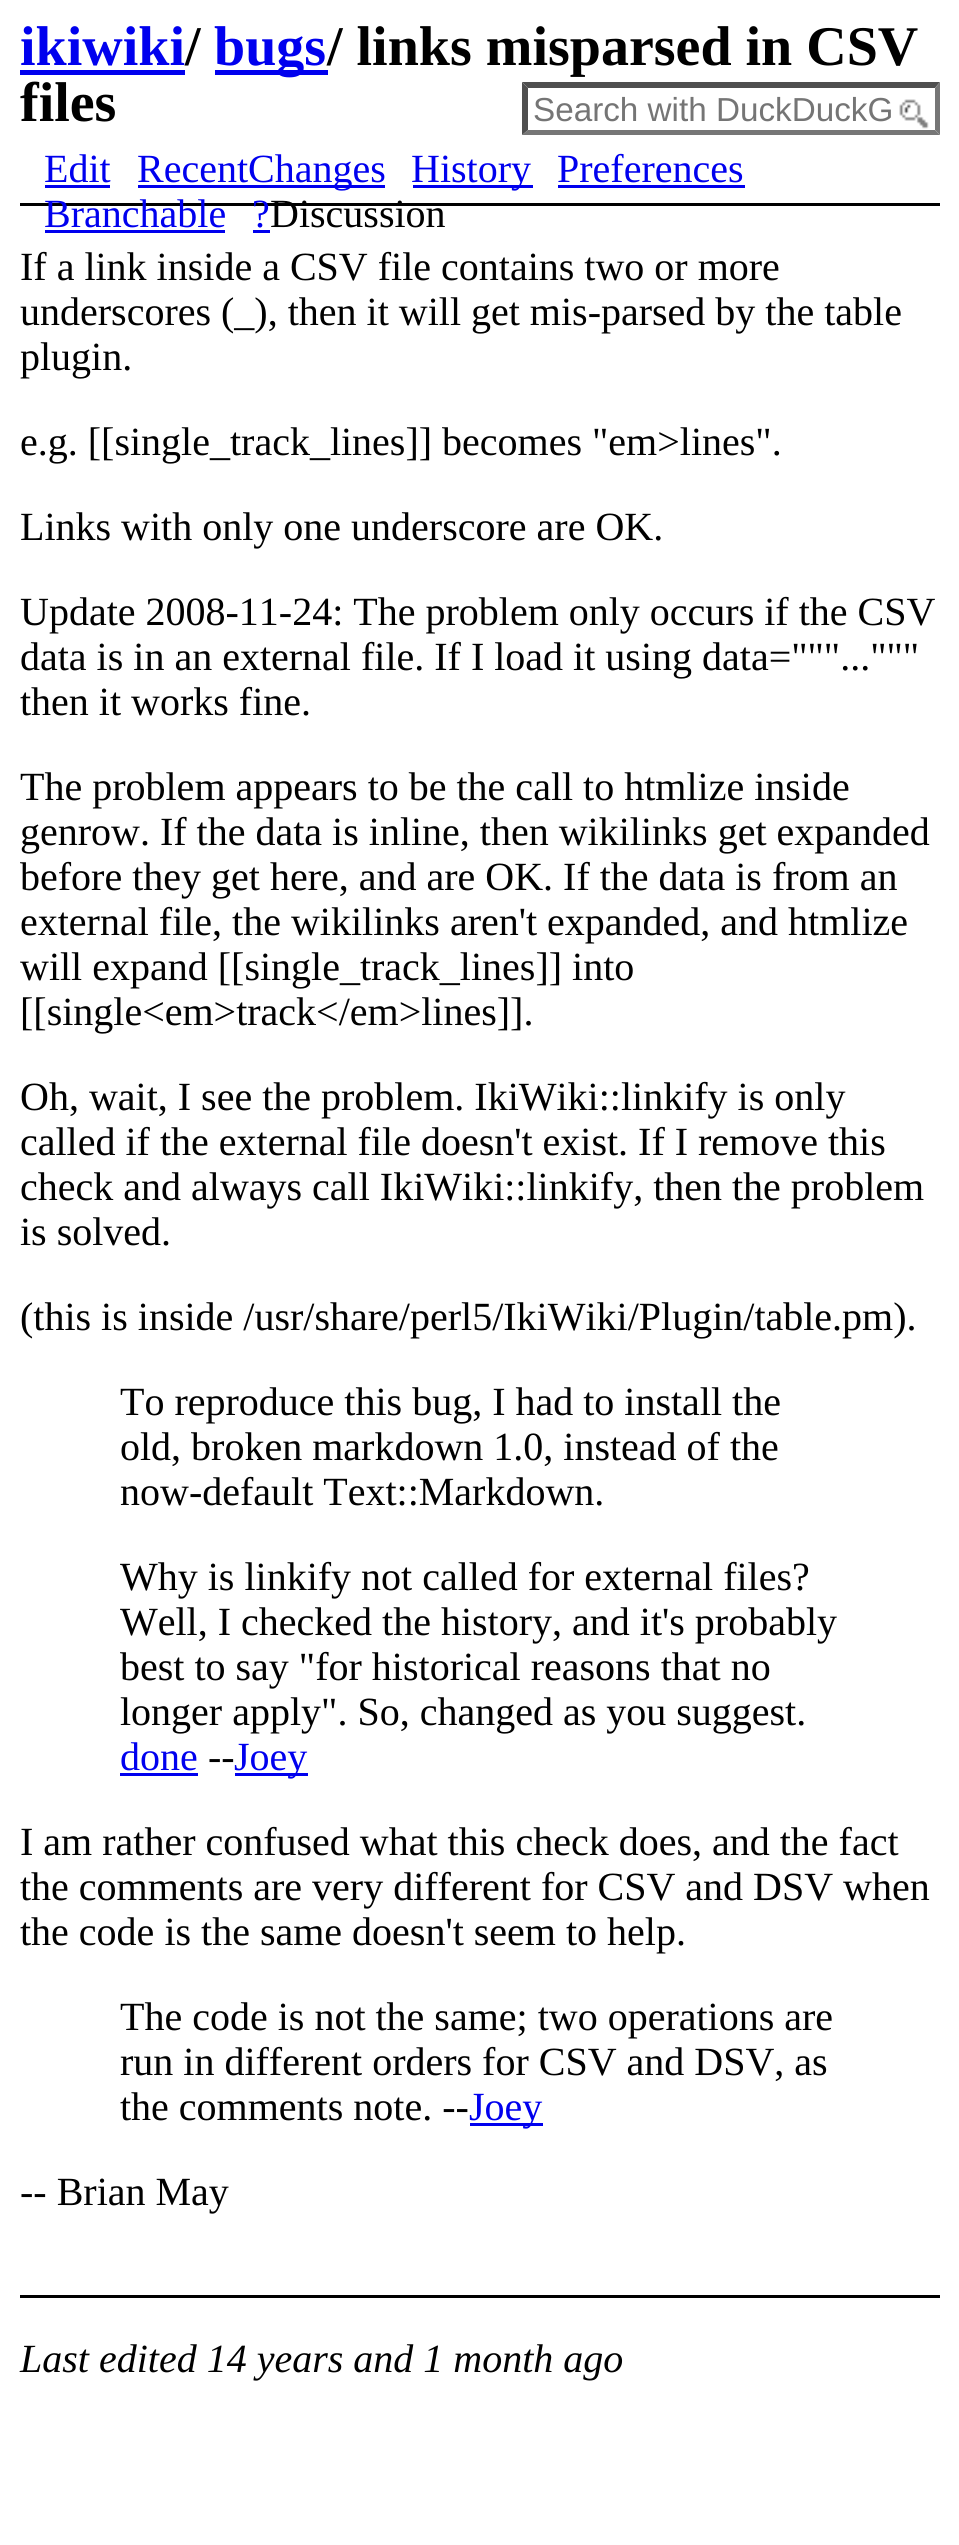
import math
import cairo

surface = cairo.ImageSurface(cairo.FORMAT_RGB24, 959, 2545)
ctx = cairo.Context(surface)
options = cairo.FontOptions()
options.set_hint_metrics(cairo.HINT_METRICS_OFF)
options.set_hint_style(cairo.HINT_STYLE_NONE)
ctx.set_font_options(options)
ctx.set_miter_limit(4)


def set_color(code):
    ctx.set_source_rgb(*(v / 255 for v in bytes.fromhex(code[-6:])))


def draw_text(x, y, s, family, size, color, bold=False, italic=False):
    ctx.select_font_face(family, cairo.FONT_SLANT_ITALIC if italic else cairo.FONT_SLANT_NORMAL, cairo.FONT_WEIGHT_BOLD if bold else cairo.FONT_WEIGHT_NORMAL)
    ctx.set_font_size(size)
    set_color(color)
    ctx.move_to(x, y)
    ctx.show_text(s)


def fill_rect(x, y, w, h, color):
    set_color(color)
    ctx.rectangle(x, y, w, h)
    ctx.fill()


def draw_image(path, x, y, w, h):
    ctx.save()
    ctx.set_source_surface(cairo.ImageSurface.create_from_png(path), x, y)
    ctx.rectangle(x, y, w, h)
    ctx.fill()
    ctx.restore()


set_color("#ffffff")
ctx.paint()
draw_text(20, 65, "ikiwiki", "Liberation Serif", 56, "#0000ee", bold=True)
draw_text(185, 65, "/", "Liberation Serif", 56, "#000000", bold=True)
fill_rect(20, 70, 165, 5, "#0000ee")
fill_rect(215, 70, 113, 5, "#0000ee")
draw_text(214, 65, "bugs", "Liberation Serif", 56, "#0000ee", bold=True)
draw_text(327, 65, "/ links misparsed in CSV", "Liberation Serif", 56, "#000000", bold=True)
draw_text(20, 121, "files", "Liberation Serif", 56, "#000000", bold=True)
draw_image("assets/img1.png", 899, 99, 30, 30)
set_color("#4f4f4f")
ctx.new_path()
ctx.move_to(522, 82)
ctx.line_to(940, 82)
ctx.line_to(935, 88)
ctx.line_to(528, 88)
ctx.close_path()
ctx.fill()
set_color("#767676")
ctx.new_path()
ctx.move_to(940, 82)
ctx.line_to(940, 135)
ctx.line_to(935, 130)
ctx.line_to(935, 88)
ctx.close_path()
ctx.fill()
ctx.new_path()
ctx.move_to(940, 135)
ctx.line_to(522, 135)
ctx.line_to(528, 130)
ctx.line_to(935, 130)
ctx.close_path()
ctx.fill()
set_color("#4f4f4f")
ctx.new_path()
ctx.move_to(522, 135)
ctx.line_to(522, 82)
ctx.line_to(528, 88)
ctx.line_to(528, 130)
ctx.close_path()
ctx.fill()
draw_text(533, 121, "Search with DuckDuckG", "Liberation Sans", 33.25, "#757575")
fill_rect(20, 203, 920, 3, "#000000")
draw_text(44, 182, "Edit", "Liberation Serif", 40, "#0000ee")
fill_rect(45, 185, 65, 3, "#0000ee")
fill_rect(138, 185, 247, 3, "#0000ee")
draw_text(137, 182, "RecentChanges", "Liberation Serif", 40, "#0000ee")
fill_rect(413, 185, 120, 3, "#0000ee")
draw_text(411, 182, "History", "Liberation Serif", 40, "#0000ee")
draw_text(557, 182, "Preferences", "Liberation Serif", 40, "#0000ee")
fill_rect(558, 185, 187, 3, "#0000ee")
draw_text(44, 227, "Branchable", "Liberation Serif", 40, "#0000ee")
fill_rect(45, 230, 180, 3, "#0000ee")
draw_text(252, 227, "?", "Liberation Serif", 40, "#0000ee")
fill_rect(253, 230, 17, 3, "#0000ee")
draw_text(270, 227, "Discussion", "Liberation Serif", 40, "#000000")
draw_text(20, 280, "If a link inside a CSV file contains two or more", "Liberation Serif", 40, "#000000")
draw_text(20, 325, "underscores (_), then it will get mis-parsed by the table", "Liberation Serif", 40, "#000000")
draw_text(20, 370, "plugin.", "Liberation Serif", 40, "#000000")
draw_text(20, 455, "e.g. [[single_track_lines]] becomes \"em>lines\".", "Liberation Serif", 40, "#000000")
draw_text(20, 540, "Links with only one underscore are OK.", "Liberation Serif", 40, "#000000")
draw_text(20, 625, "Update 2008-11-24: The problem only occurs if the CSV", "Liberation Serif", 40, "#000000")
draw_text(20, 670, "data is in an external file. If I load it using data=\"\"\"...\"\"\"", "Liberation Serif", 40, "#000000")
draw_text(20, 715, "then it works fine.", "Liberation Serif", 40, "#000000")
draw_text(20, 800, "The problem appears to be the call to htmlize inside", "Liberation Serif", 40, "#000000")
draw_text(20, 845, "genrow. If the data is inline, then wikilinks get expanded", "Liberation Serif", 40, "#000000")
draw_text(20, 890, "before they get here, and are OK. If the data is from an", "Liberation Serif", 40, "#000000")
draw_text(20, 935, "external file, the wikilinks aren't expanded, and htmlize", "Liberation Serif", 40, "#000000")
draw_text(20, 980, "will expand [[single_track_lines]] into", "Liberation Serif", 40, "#000000")
draw_text(20, 1025, "[[single<em>track</em>lines]].", "Liberation Serif", 40, "#000000")
draw_text(20, 1110, "Oh, wait, I see the problem. IkiWiki::linkify is only", "Liberation Serif", 40, "#000000")
draw_text(20, 1155, "called if the external file doesn't exist. If I remove this", "Liberation Serif", 40, "#000000")
draw_text(20, 1200, "check and always call IkiWiki::linkify, then the problem", "Liberation Serif", 40, "#000000")
draw_text(20, 1245, "is solved.", "Liberation Serif", 40, "#000000")
draw_text(20, 1330, "(this is inside /usr/share/perl5/IkiWiki/Plugin/table.pm).", "Liberation Serif", 40, "#000000")
draw_text(120, 1415, "To reproduce this bug, I had to install the", "Liberation Serif", 40, "#000000")
draw_text(120, 1460, "old, broken markdown 1.0, instead of the", "Liberation Serif", 40, "#000000")
draw_text(120, 1505, "now-default Text::Markdown.", "Liberation Serif", 40, "#000000")
draw_text(120, 1590, "Why is linkify not called for external files?", "Liberation Serif", 40, "#000000")
draw_text(120, 1635, "Well, I checked the history, and it's probably", "Liberation Serif", 40, "#000000")
draw_text(120, 1680, "best to say \"for historical reasons that no", "Liberation Serif", 40, "#000000")
draw_text(120, 1725, "longer apply\". So, changed as you suggest.", "Liberation Serif", 40, "#000000")
draw_text(120, 1770, "done", "Liberation Serif", 40, "#0000ee")
fill_rect(120, 1773, 78, 3, "#0000ee")
draw_text(208, 1770, "--", "Liberation Serif", 40, "#000000")
fill_rect(235, 1773, 73, 3, "#0000ee")
draw_text(234, 1770, "Joey", "Liberation Serif", 40, "#0000ee")
draw_text(20, 1855, "I am rather confused what this check does, and the fact", "Liberation Serif", 40, "#000000")
draw_text(20, 1900, "the comments are very different for CSV and DSV when", "Liberation Serif", 40, "#000000")
draw_text(20, 1945, "the code is the same doesn't seem to help.", "Liberation Serif", 40, "#000000")
draw_text(120, 2030, "The code is not the same; two operations are", "Liberation Serif", 40, "#000000")
draw_text(120, 2075, "run in different orders for CSV and DSV, as", "Liberation Serif", 40, "#000000")
draw_text(120, 2120, "the comments note. --", "Liberation Serif", 40, "#000000")
fill_rect(470, 2123, 73, 3, "#0000ee")
draw_text(469, 2120, "Joey", "Liberation Serif", 40, "#0000ee")
draw_text(20, 2205, "-- Brian May", "Liberation Serif", 40, "#000000")
fill_rect(20, 2295, 920, 3, "#000000")
draw_text(20, 2372, "Last edited 14 years and 1 month ago", "Liberation Serif", 40, "#000000", italic=True)
surface.write_to_png("output.png")
